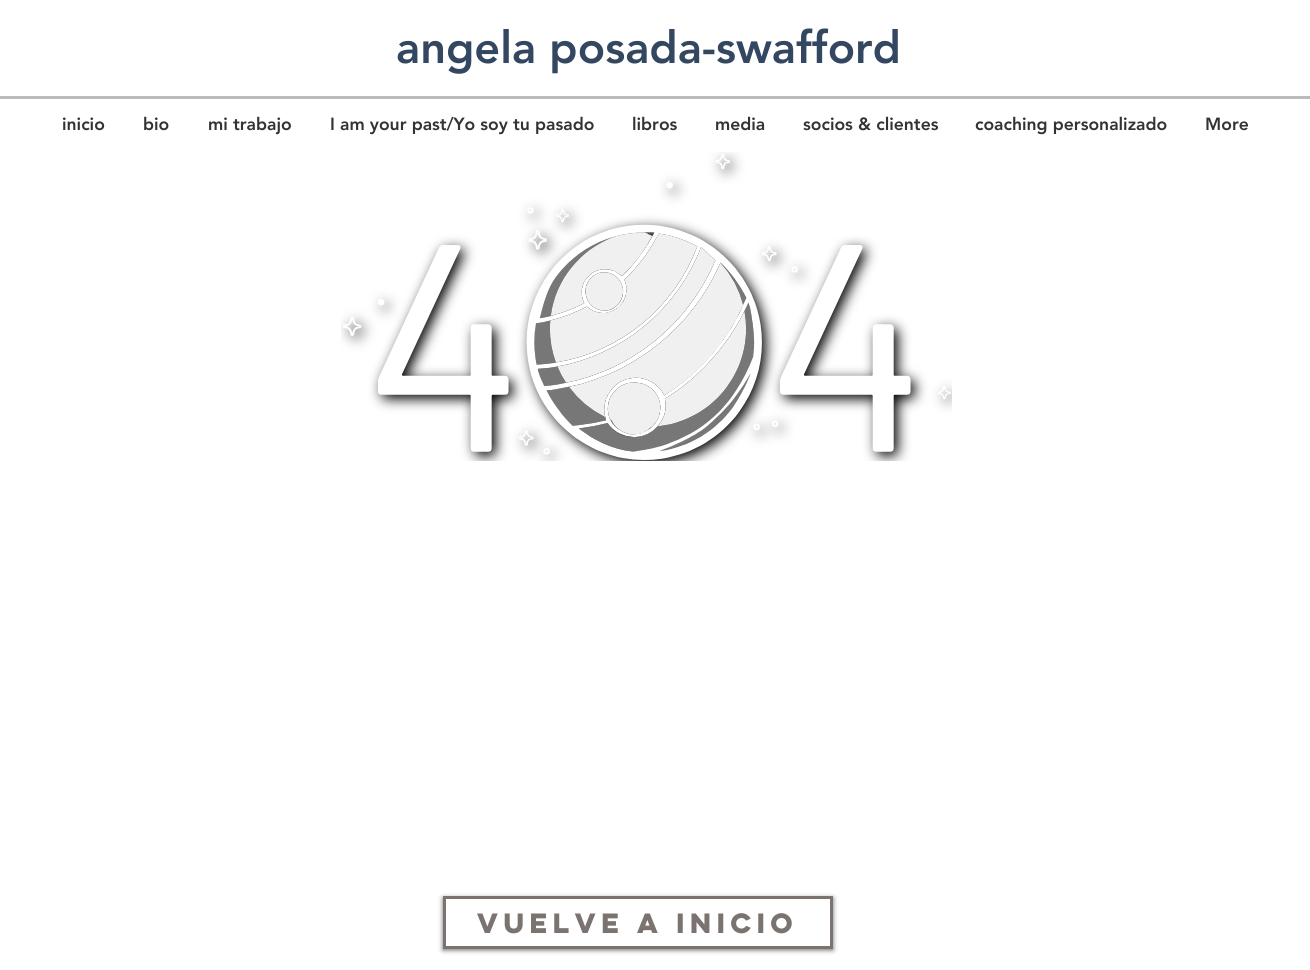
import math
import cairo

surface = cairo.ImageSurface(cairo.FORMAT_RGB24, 1310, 970)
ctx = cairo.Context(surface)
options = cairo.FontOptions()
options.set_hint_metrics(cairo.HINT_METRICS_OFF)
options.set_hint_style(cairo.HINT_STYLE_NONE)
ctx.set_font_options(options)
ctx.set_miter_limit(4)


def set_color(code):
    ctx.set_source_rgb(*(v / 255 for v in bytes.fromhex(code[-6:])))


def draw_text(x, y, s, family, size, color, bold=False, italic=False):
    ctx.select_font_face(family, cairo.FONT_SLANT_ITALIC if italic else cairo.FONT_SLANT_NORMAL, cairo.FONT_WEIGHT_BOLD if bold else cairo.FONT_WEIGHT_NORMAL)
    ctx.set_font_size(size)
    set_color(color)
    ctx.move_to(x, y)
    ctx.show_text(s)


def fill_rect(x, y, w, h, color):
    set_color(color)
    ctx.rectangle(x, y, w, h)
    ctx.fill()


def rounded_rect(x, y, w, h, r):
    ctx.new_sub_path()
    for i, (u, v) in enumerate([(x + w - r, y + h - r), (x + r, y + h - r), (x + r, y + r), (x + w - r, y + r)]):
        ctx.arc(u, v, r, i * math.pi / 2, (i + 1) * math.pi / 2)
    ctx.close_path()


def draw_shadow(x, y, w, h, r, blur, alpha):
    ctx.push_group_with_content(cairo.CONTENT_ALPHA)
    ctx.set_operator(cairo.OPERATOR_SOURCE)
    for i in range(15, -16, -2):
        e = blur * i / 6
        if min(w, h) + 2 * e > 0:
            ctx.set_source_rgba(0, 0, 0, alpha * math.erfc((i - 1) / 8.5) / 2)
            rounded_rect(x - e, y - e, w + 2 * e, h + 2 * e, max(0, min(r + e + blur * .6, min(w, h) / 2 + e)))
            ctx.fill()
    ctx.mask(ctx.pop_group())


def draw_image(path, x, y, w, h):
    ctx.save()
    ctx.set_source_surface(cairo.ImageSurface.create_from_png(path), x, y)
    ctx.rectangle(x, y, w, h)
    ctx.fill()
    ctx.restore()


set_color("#ffffff")
ctx.paint()
draw_text(396, 63, "angela posada-swafford", "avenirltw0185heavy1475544 Black", 45, "#334761")
fill_rect(0, 96, 1310, 3, "#bbbbbb")
draw_text(62, 130, "inicio", "avenirltw0185heavy1475544 Black", 17.5, "#333333")
draw_text(143, 130, "bio", "avenirltw0185heavy1475544 Black", 17.5, "#333333")
draw_text(208, 130, "mi trabajo", "avenirltw0185heavy1475544 Black", 17.5, "#333333")
draw_text(330, 130, "I am your past/Yo soy tu pasado", "avenirltw0185heavy1475544 Black", 17.5, "#333333")
draw_text(632, 130, "libros", "avenirltw0185heavy1475544 Black", 17.5, "#333333")
draw_text(715, 130, "media", "avenirltw0185heavy1475544 Black", 17.5, "#333333")
draw_text(803, 130, "socios & clientes", "avenirltw0185heavy1475544 Black", 17.5, "#333333")
draw_text(975, 130, "coaching personalizado", "avenirltw0185heavy1475544 Black", 17.5, "#333333")
draw_text(1205, 130, "More", "avenirltw0185heavy1475544 Black", 17.5, "#333333")
draw_image("assets/img1.png", 341, 152, 611, 309)
set_color("#000000")
draw_shadow(443, 898, 390, 52, 0, 2.5, 0.6)
set_color("#ffffff")
ctx.rectangle(444.5, 897.5, 387, 50)
ctx.fill_preserve()
set_color("#7b736f")
ctx.set_line_width(3)
ctx.stroke()
draw_text(477, 933, "vuelve a inicio", "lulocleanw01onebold", 25, "#7b736f", bold=True)
surface.write_to_png("output.png")
